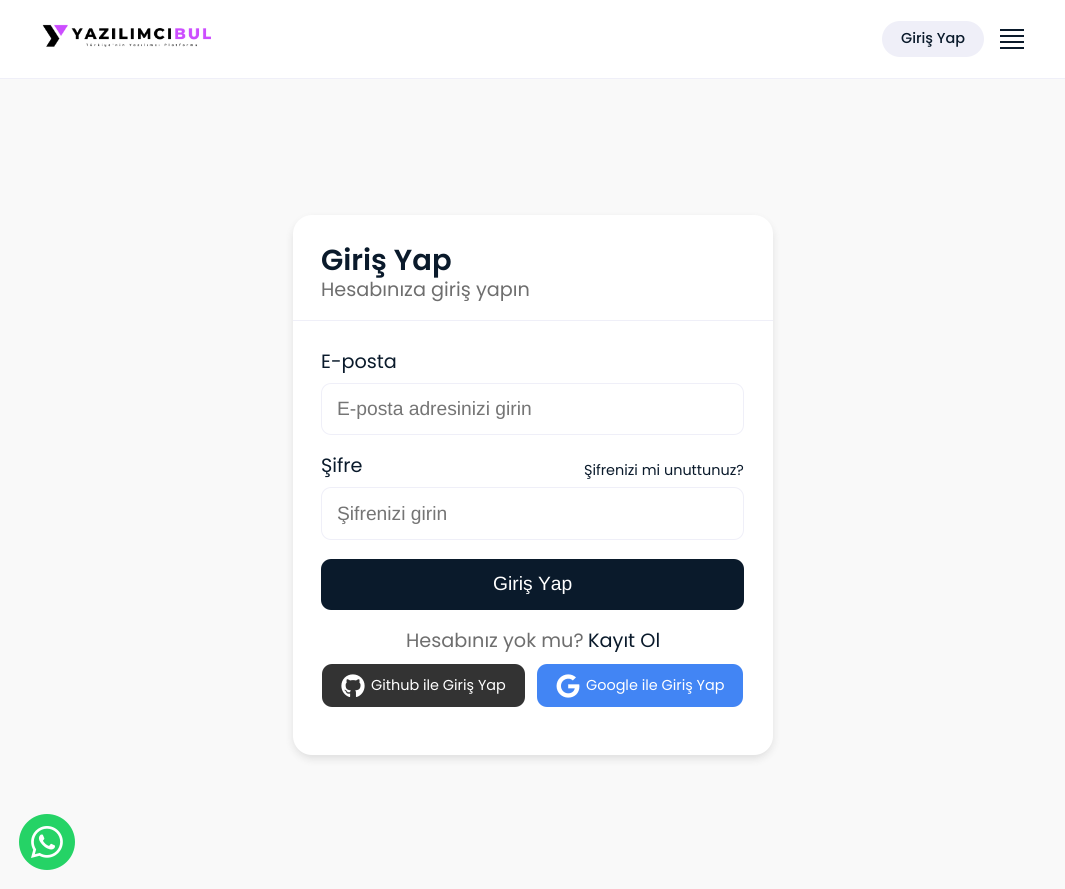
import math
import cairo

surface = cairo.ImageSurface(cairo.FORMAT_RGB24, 1065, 889)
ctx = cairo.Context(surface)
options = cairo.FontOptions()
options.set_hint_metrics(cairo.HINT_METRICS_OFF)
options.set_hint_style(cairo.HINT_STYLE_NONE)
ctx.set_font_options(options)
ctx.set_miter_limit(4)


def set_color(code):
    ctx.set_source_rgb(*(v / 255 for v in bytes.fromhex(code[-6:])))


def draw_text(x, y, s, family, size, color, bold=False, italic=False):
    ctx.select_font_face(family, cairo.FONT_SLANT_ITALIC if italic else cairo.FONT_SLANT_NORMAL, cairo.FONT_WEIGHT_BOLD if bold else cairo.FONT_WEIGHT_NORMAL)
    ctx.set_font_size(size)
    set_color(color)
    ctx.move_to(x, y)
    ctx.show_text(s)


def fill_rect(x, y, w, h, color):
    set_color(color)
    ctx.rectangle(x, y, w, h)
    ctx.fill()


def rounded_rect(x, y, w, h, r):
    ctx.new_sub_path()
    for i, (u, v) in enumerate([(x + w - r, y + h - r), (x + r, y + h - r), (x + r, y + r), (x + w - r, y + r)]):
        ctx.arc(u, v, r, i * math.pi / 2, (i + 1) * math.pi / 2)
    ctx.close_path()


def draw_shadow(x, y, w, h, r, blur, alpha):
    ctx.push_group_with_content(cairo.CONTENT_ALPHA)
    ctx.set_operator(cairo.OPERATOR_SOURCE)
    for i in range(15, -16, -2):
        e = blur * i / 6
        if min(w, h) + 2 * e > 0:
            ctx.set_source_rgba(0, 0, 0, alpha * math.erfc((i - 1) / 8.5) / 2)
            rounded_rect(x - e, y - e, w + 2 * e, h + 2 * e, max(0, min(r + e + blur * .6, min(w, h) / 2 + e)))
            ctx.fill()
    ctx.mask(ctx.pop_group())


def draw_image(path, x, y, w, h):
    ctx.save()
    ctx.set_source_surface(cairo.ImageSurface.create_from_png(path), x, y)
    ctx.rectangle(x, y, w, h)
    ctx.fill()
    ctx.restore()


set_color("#ffffff")
ctx.paint()
fill_rect(0, 78, 1065, 1, "#efeff8")
draw_image("assets/img1.png", 42, 24, 169, 23)
rounded_rect(882, 21, 102, 36, 18)
ctx.fill()
draw_text(901, 43, "Giriş Yap", "Poppins Medium", 14.4, "#0a1a2b")
draw_image("assets/img2.png", 1000, 29, 24, 20)
fill_rect(0, 79, 1065, 810, "#f9f9f9")
set_color("#000000")
draw_shadow(293, 219, 480, 540, 19, 4, 0.1)
set_color("#ffffff")
rounded_rect(293, 215, 480, 540, 19)
ctx.fill()
fill_rect(293, 320, 480, 1, "#efeff8")
draw_text(321, 270, "Giriş Yap", "Poppins SemiBold", 29, "#0a1a2b")
draw_text(321, 296, "Hesabınıza giriş yapın", "Poppins", 19.25, "#6e6e6e")
draw_text(321, 368, "E-posta", "Poppins", 19.25, "#0a1a2b")
rounded_rect(321.5, 383.5, 422, 51, 9.5)
set_color("#efeff8")
ctx.set_line_width(1)
ctx.stroke()
draw_text(337, 415, "E-posta adresinizi girin", "Liberation Sans", 19.25, "#757575")
draw_text(321, 472, "Şifre", "Poppins", 19.25, "#0a1a2b")
draw_text(584, 475, "Şifrenizi mi unuttunuz?", "Poppins", 14.4, "#0a1a2b")
rounded_rect(321.5, 487.5, 422, 52, 9.5)
set_color("#efeff8")
ctx.stroke()
draw_text(337, 520, "Şifrenizi girin", "Liberation Sans", 19.25, "#757575")
set_color("#0a1a2b")
rounded_rect(321, 559, 423, 51, 10)
ctx.fill()
draw_text(493, 590, "Giriş Yap", "Liberation Sans", 19.25, "#ffffff")
draw_text(406, 647, "Hesabınız yok mu?", "Poppins", 19.25, "#6e6e6e")
draw_text(588, 647, "Kayıt Ol", "Poppins", 19.25, "#0a1a2b")
set_color("#333333")
rounded_rect(322, 664, 203, 43, 10)
ctx.fill()
draw_image("assets/img3.png", 341, 674, 24, 23)
draw_text(371, 690, "Github ile Giriş Yap", "Poppins", 14.4, "#ffffff")
set_color("#4285f4")
rounded_rect(537, 664, 206, 43, 10)
ctx.fill()
draw_image("assets/img4.png", 556, 674, 24, 24)
draw_text(586, 690, "Google ile Giriş Yap", "Poppins", 14.4, "#ffffff")
set_color("#25d366")
ctx.new_path()
ctx.arc(47, 842, 28, 0, 2 * math.pi)
ctx.fill()
draw_image("assets/img5.png", 31, 826, 32, 32)
surface.write_to_png("output.png")
